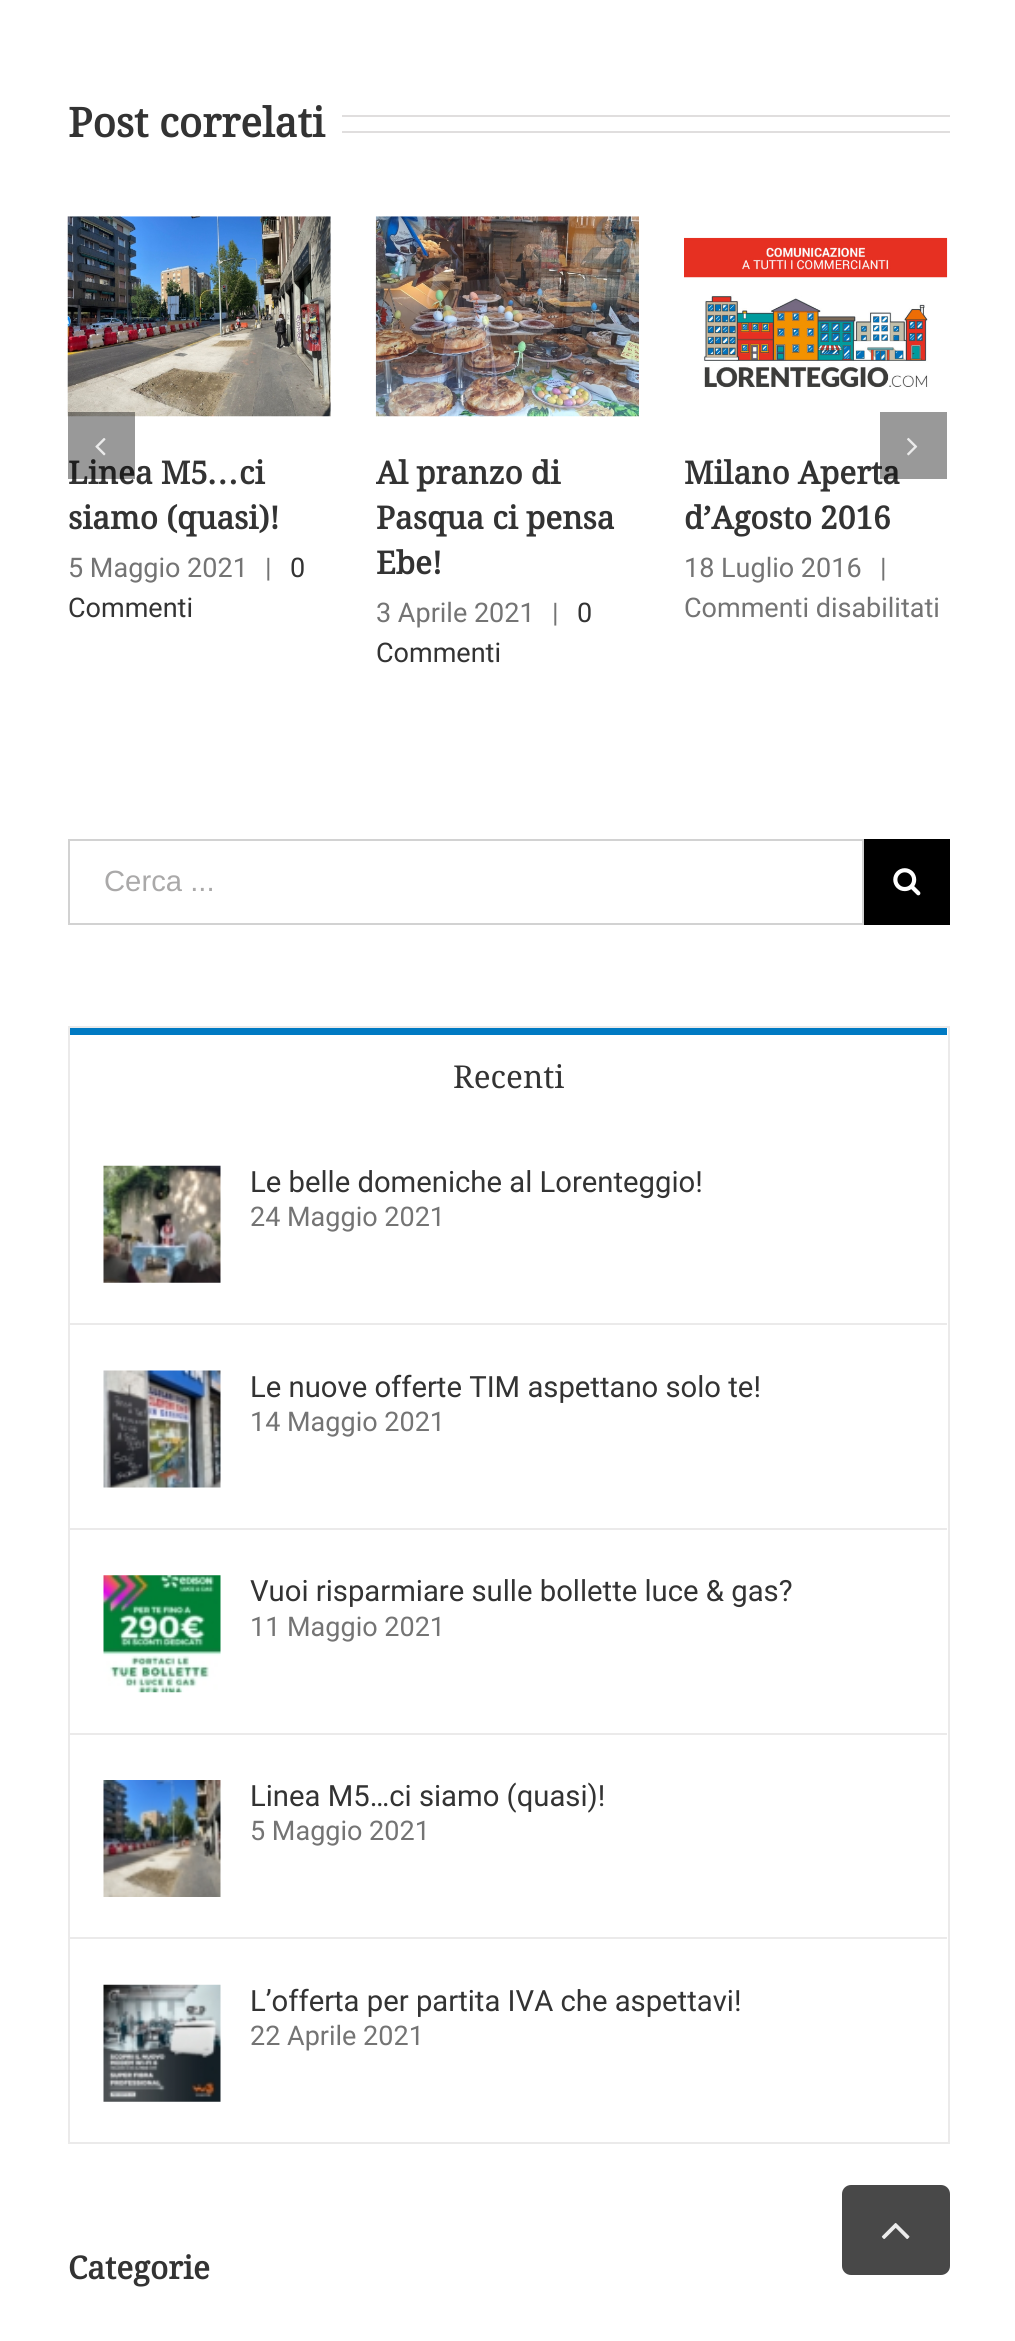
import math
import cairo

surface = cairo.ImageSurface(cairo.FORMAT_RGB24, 1015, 2341)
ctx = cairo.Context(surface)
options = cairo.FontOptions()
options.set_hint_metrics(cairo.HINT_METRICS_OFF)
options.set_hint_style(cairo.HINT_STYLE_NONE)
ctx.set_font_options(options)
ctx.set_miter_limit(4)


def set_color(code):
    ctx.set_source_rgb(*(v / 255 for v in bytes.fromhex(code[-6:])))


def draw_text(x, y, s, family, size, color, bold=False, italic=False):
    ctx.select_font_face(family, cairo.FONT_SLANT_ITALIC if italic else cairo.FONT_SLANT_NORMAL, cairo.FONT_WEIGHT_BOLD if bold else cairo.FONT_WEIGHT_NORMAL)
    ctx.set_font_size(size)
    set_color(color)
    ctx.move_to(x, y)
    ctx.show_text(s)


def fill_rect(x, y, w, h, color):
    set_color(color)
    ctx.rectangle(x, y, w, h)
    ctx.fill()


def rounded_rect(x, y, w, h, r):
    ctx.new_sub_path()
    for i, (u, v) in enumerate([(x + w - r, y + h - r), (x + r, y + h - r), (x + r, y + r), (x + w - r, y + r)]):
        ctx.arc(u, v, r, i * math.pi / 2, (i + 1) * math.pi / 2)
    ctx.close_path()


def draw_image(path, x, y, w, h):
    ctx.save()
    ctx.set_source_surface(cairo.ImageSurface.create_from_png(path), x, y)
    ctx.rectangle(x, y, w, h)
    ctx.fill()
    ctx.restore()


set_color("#ffffff")
ctx.paint()
draw_text(68, 137, "Post correlati", "Droid Serif", 40.5, "#333333", bold=True)
fill_rect(342, 115, 608, 2, "#e0dede")
fill_rect(342, 131, 608, 2, "#e0dede")
draw_image("assets/img3.png", 67, 216, 264, 201)
draw_text(68, 484, "Linea M5", "Droid Serif", 31.5, "#333333", bold=True)
ctx.set_source_rgba(0, 0, 0, 0.4)
ctx.rectangle(68, 412, 67, 67)
ctx.fill()
draw_image("assets/img1.png", 95, 438, 11, 18)
draw_text(684, 484, "Milano Aperta", "Droid Serif", 31.5, "#333333", bold=True)
ctx.set_source_rgba(0, 0, 0, 0.4)
ctx.rectangle(880, 412, 67, 67)
ctx.fill()
draw_image("assets/img2.png", 907, 437, 11, 19)
draw_text(207, 484, "…", "Liberation Serif", 31.5, "#333333", bold=True)
draw_text(239, 484, "ci", "Droid Serif", 31.5, "#333333", bold=True)
draw_text(68, 529, "siamo (quasi)!", "Droid Serif", 31.5, "#333333", bold=True)
draw_text(68, 577, "5 Maggio 2021", "Roboto", 27, "#747474")
draw_text(265, 577, "|", "Roboto", 27, "#747474")
draw_text(290, 577, "0", "Roboto", 27, "#333333")
draw_text(68, 617, "Commenti", "Roboto", 27, "#333333")
draw_image("assets/img4.png", 375, 216, 264, 201)
draw_text(376, 484, "Al pranzo di", "Droid Serif", 31.5, "#333333", bold=True)
draw_text(376, 529, "Pasqua ci pensa", "Droid Serif", 31.5, "#333333", bold=True)
draw_text(376, 574, "Ebe!", "Droid Serif", 31.5, "#333333", bold=True)
draw_text(376, 622, "3 Aprile 2021", "Roboto", 27, "#747474")
draw_text(552, 622, "|", "Roboto", 27, "#747474")
draw_text(577, 622, "0", "Roboto", 27, "#333333")
draw_text(376, 662, "Commenti", "Roboto", 27, "#333333")
draw_image("assets/img5.png", 684, 237, 264, 151)
draw_text(684, 529, "d’Agosto 2016", "Droid Serif", 31.5, "#333333", bold=True)
draw_text(684, 577, "18 Luglio 2016", "Roboto", 27, "#747474")
draw_text(880, 577, "|", "Roboto", 27, "#747474")
draw_text(684, 617, "Commenti disabilitati", "Roboto", 27, "#747474")
ctx.rectangle(69, 840, 794, 84)
set_color("#d2d2d2")
ctx.stroke()
draw_text(104, 891, "Cerca ...", "Liberation Sans", 29.25, "#aaa9a9")
fill_rect(864, 839, 86, 86, "#000000")
draw_image("assets/img6.png", 893, 868, 28, 28)
ctx.rectangle(69, 1027, 880, 1116)
set_color("#ebeaea")
ctx.stroke()
fill_rect(70, 1028, 877, 7, "#007ac3")
draw_text(453, 1088, "Recenti", "Droid Serif", 31.5, "#333333")
fill_rect(70, 1323, 877, 2, "#ebeaea")
draw_image("assets/img7.png", 103, 1165, 118, 118)
draw_text(250, 1192, "Le belle domeniche al Lorenteggio!", "Roboto", 29.25, "#333333")
draw_text(250, 1226, "24 Maggio 2021", "Roboto", 27, "#747474")
fill_rect(70, 1528, 877, 2, "#ebeaea")
draw_image("assets/img8.png", 103, 1370, 118, 118)
draw_text(250, 1397, "Le nuove offerte TIM aspettano solo te!", "Roboto", 29.25, "#333333")
draw_text(250, 1431, "14 Maggio 2021", "Roboto", 27, "#747474")
fill_rect(70, 1733, 877, 2, "#ebeaea")
draw_image("assets/img9.png", 103, 1575, 118, 118)
draw_text(250, 1601, "Vuoi risparmiare sulle bollette luce & gas?", "Roboto", 29.25, "#333333")
draw_text(250, 1636, "11 Maggio 2021", "Roboto", 27, "#747474")
fill_rect(70, 1937, 877, 2, "#ebeaea")
draw_image("assets/img10.png", 103, 1780, 118, 117)
draw_text(250, 1806, "Linea M5…ci siamo (quasi)!", "Roboto", 29.25, "#333333")
draw_text(250, 1840, "5 Maggio 2021", "Roboto", 27, "#747474")
draw_image("assets/img11.png", 103, 1984, 118, 118)
draw_text(250, 2011, "L’offerta per partita IVA che aspettavi!", "Roboto", 29.25, "#333333")
draw_text(250, 2045, "22 Aprile 2021", "Roboto", 27, "#747474")
draw_text(68, 2279, "Categorie", "Droid Serif", 31.5, "#333333", bold=True)
set_color("#484848")
rounded_rect(842, 2185, 108, 90, 9)
ctx.fill()
draw_image("assets/img12.png", 881, 2223, 29, 16)
surface.write_to_png("output.png")
